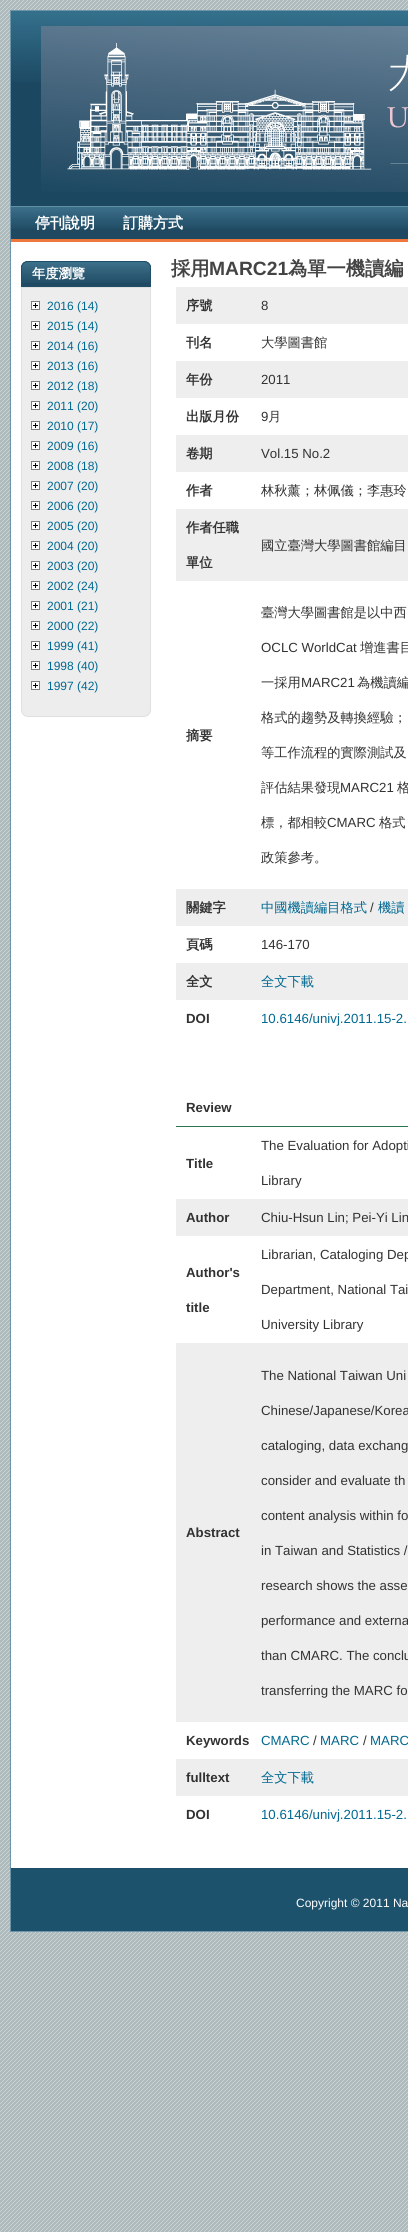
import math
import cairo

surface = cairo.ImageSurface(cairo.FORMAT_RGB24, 408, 2232)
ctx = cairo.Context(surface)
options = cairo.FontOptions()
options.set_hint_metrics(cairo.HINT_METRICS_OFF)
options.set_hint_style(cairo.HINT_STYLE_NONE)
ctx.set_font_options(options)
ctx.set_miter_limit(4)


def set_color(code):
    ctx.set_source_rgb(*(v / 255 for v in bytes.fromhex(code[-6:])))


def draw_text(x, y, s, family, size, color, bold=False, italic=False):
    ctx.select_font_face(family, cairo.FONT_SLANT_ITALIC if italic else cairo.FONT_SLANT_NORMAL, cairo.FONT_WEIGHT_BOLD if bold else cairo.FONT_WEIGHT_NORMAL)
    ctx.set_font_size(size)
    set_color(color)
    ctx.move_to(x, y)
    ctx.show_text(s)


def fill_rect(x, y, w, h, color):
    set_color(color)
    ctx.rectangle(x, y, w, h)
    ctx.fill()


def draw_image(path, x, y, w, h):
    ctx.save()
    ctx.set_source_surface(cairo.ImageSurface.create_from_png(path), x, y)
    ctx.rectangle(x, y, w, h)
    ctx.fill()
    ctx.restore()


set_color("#ffffff")
ctx.paint()
draw_image("assets/img1.png", 0, 0, 408, 2232)
fill_rect(11, 242, 397, 1626, "#ffffff")
ctx.rectangle(10.5, 10.5, 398, 1921)
set_color("#6e94a9")
ctx.set_line_width(1)
ctx.stroke()
fill_rect(11, 82, 397, 124, "#1b4761")
draw_image("assets/img2.png", 11, 11, 397, 71)
draw_image("assets/img3.png", 41, 26, 367, 166)
fill_rect(11, 229, 397, 10, "#1f4961")
draw_image("assets/img4.png", 11, 207, 397, 22)
fill_rect(11, 206, 397, 1, "#608ea4")
fill_rect(11, 239, 397, 3, "#ed773c")
draw_text(35, 228, "停刊說明", "WenQuanYi Zen Hei", 15, "#ffffff", bold=True)
draw_text(123, 228, "訂購方式", "WenQuanYi Zen Hei", 15, "#ffffff", bold=True)
set_color("#204a63")
ctx.new_path()
ctx.move_to(28, 261)
ctx.line_to(144, 261)
ctx.curve_to(148, 261, 151, 264, 151, 268)
ctx.line_to(151, 287)
ctx.line_to(21, 287)
ctx.line_to(21, 268)
ctx.curve_to(21, 264, 24, 261, 28, 261)
ctx.close_path()
ctx.fill()
draw_image("assets/img5.png", 21, 262, 130, 21)
ctx.new_path()
ctx.move_to(28, 261.5)
ctx.line_to(144, 261.5)
ctx.curve_to(147.5, 261.5, 150.5, 264.5, 150.5, 268)
ctx.line_to(150.5, 286.5)
ctx.line_to(21.5, 286.5)
ctx.line_to(21.5, 268)
ctx.curve_to(21.5, 264.5, 24.5, 261.5, 28, 261.5)
ctx.close_path()
set_color("#204e66")
ctx.stroke()
draw_text(32, 278, "年度瀏覽", "WenQuanYi Zen Hei", 13.25, "#ffffff", bold=True)
set_color("#ededed")
ctx.new_path()
ctx.move_to(21.5, 287.5)
ctx.line_to(150.5, 287.5)
ctx.line_to(150.5, 710)
ctx.curve_to(150.5, 713.5, 147.5, 716.5, 144, 716.5)
ctx.line_to(28, 716.5)
ctx.curve_to(24.5, 716.5, 21.5, 713.5, 21.5, 710)
ctx.close_path()
ctx.fill_preserve()
set_color("#e0e0e0")
ctx.stroke()
draw_image("assets/img6.png", 31, 301, 9, 9)
draw_text(47, 310, "2016 (14)", "Liberation Sans", 12, "#006891")
draw_image("assets/img6.png", 31, 321, 9, 9)
draw_text(47, 330, "2015 (14)", "Liberation Sans", 12, "#006891")
draw_image("assets/img6.png", 31, 341, 9, 9)
draw_text(47, 350, "2014 (16)", "Liberation Sans", 12, "#006891")
draw_image("assets/img6.png", 31, 361, 9, 9)
draw_text(47, 370, "2013 (16)", "Liberation Sans", 12, "#006891")
draw_image("assets/img6.png", 31, 381, 9, 9)
draw_text(47, 390, "2012 (18)", "Liberation Sans", 12, "#006891")
draw_image("assets/img6.png", 31, 401, 9, 9)
draw_text(47, 410, "2011 (20)", "Liberation Sans", 12, "#006891")
draw_image("assets/img6.png", 31, 421, 9, 9)
draw_text(47, 430, "2010 (17)", "Liberation Sans", 12, "#006891")
draw_image("assets/img6.png", 31, 441, 9, 9)
draw_text(47, 450, "2009 (16)", "Liberation Sans", 12, "#006891")
draw_image("assets/img6.png", 31, 461, 9, 9)
draw_text(47, 470, "2008 (18)", "Liberation Sans", 12, "#006891")
draw_image("assets/img6.png", 31, 481, 9, 9)
draw_text(47, 490, "2007 (20)", "Liberation Sans", 12, "#006891")
draw_image("assets/img6.png", 31, 501, 9, 9)
draw_text(47, 510, "2006 (20)", "Liberation Sans", 12, "#006891")
draw_image("assets/img6.png", 31, 521, 9, 9)
draw_text(47, 530, "2005 (20)", "Liberation Sans", 12, "#006891")
draw_image("assets/img6.png", 31, 541, 9, 9)
draw_text(47, 550, "2004 (20)", "Liberation Sans", 12, "#006891")
draw_image("assets/img6.png", 31, 561, 9, 9)
draw_text(47, 570, "2003 (20)", "Liberation Sans", 12, "#006891")
draw_image("assets/img6.png", 31, 581, 9, 9)
draw_text(47, 590, "2002 (24)", "Liberation Sans", 12, "#006891")
draw_image("assets/img6.png", 31, 601, 9, 9)
draw_text(47, 610, "2001 (21)", "Liberation Sans", 12, "#006891")
draw_image("assets/img6.png", 31, 621, 9, 9)
draw_text(47, 630, "2000 (22)", "Liberation Sans", 12, "#006891")
draw_image("assets/img6.png", 31, 641, 9, 9)
draw_text(47, 650, "1999 (41)", "Liberation Sans", 12, "#006891")
draw_image("assets/img6.png", 31, 661, 9, 9)
draw_text(47, 670, "1998 (40)", "Liberation Sans", 12, "#006891")
draw_image("assets/img6.png", 31, 681, 9, 9)
draw_text(47, 690, "1997 (42)", "Liberation Sans", 12, "#006891")
draw_text(171, 275, "採用", "WenQuanYi Zen Hei", 19.25, "#444444", bold=True)
draw_text(209, 275, "MARC21", "Liberation Sans", 19.25, "#444444", bold=True)
draw_text(288, 275, "為單一機讀編", "WenQuanYi Zen Hei", 19.25, "#444444", bold=True)
fill_rect(176, 287, 232, 37, "#eeeeee")
draw_text(186, 310, "序號", "WenQuanYi Zen Hei", 13.25, "#323232", bold=True)
draw_text(261, 310, "8", "Liberation Sans", 13.25, "#323232")
draw_text(186, 347, "刊名", "WenQuanYi Zen Hei", 13.25, "#323232", bold=True)
draw_text(261, 347, "大學圖書館", "WenQuanYi Zen Hei Medium", 13.25, "#323232")
fill_rect(176, 361, 232, 37, "#eeeeee")
draw_text(186, 384, "年份", "WenQuanYi Zen Hei", 13.25, "#323232", bold=True)
draw_text(261, 384, "2011", "Liberation Sans", 13.25, "#323232")
draw_text(186, 421, "出版月份", "WenQuanYi Zen Hei", 13.25, "#323232", bold=True)
draw_text(261, 421, "9", "Liberation Sans", 13.25, "#323232")
draw_text(268, 421, "月", "WenQuanYi Zen Hei Medium", 13.25, "#323232")
fill_rect(176, 435, 232, 37, "#eeeeee")
draw_text(186, 458, "卷期", "WenQuanYi Zen Hei", 13.25, "#323232", bold=True)
draw_text(261, 458, "Vol.15 No.2", "Liberation Sans", 13.25, "#323232")
draw_text(186, 495, "作者", "WenQuanYi Zen Hei", 13.25, "#323232", bold=True)
draw_text(261, 495, "林秋薰；林佩儀；李惠玲", "WenQuanYi Zen Hei Medium", 13.25, "#323232")
fill_rect(176, 509, 232, 72, "#eeeeee")
draw_text(186, 532, "作者任職", "WenQuanYi Zen Hei", 13.25, "#323232", bold=True)
draw_text(186, 567, "單位", "WenQuanYi Zen Hei", 13.25, "#323232", bold=True)
draw_text(261, 550, "國立臺灣大學圖書館編目", "WenQuanYi Zen Hei Medium", 13.25, "#323232")
draw_text(186, 740, "摘要", "WenQuanYi Zen Hei", 13.25, "#323232", bold=True)
draw_text(261, 617, "臺灣大學圖書館是以中西", "WenQuanYi Zen Hei Medium", 13.25, "#323232")
draw_text(261, 652, "OCLC WorldCat", "Liberation Sans", 13.25, "#323232")
draw_text(360, 652, "增進書目", "WenQuanYi Zen Hei Medium", 13.25, "#323232")
draw_text(261, 687, "一採用", "WenQuanYi Zen Hei Medium", 13.25, "#323232")
draw_text(301, 687, "MARC21", "Liberation Sans", 13.25, "#323232")
draw_text(357, 687, "為機讀編", "WenQuanYi Zen Hei Medium", 13.25, "#323232")
draw_text(261, 722, "格式的趨勢及轉換經驗；", "WenQuanYi Zen Hei Medium", 13.25, "#323232")
draw_text(261, 757, "等工作流程的實際測試及", "WenQuanYi Zen Hei Medium", 13.25, "#323232")
draw_text(261, 792, "評估結果發現", "WenQuanYi Zen Hei Medium", 13.25, "#323232")
draw_text(340, 792, "MARC21", "Liberation Sans", 13.25, "#323232")
draw_text(397, 792, "格", "WenQuanYi Zen Hei Medium", 13.25, "#323232")
draw_text(261, 827, "標，都相較", "WenQuanYi Zen Hei Medium", 13.25, "#323232")
draw_text(327, 827, "CMARC", "Liberation Sans", 13.25, "#323232")
draw_text(379, 827, "格式", "WenQuanYi Zen Hei Medium", 13.25, "#323232")
draw_text(261, 862, "政策參考。", "WenQuanYi Zen Hei Medium", 13.25, "#323232")
fill_rect(176, 889, 232, 37, "#eeeeee")
draw_text(186, 912, "關鍵字", "WenQuanYi Zen Hei", 13.25, "#323232", bold=True)
draw_text(261, 912, "中國機讀編目格式", "WenQuanYi Zen Hei Medium", 13.25, "#006891")
draw_text(370, 912, "/", "Liberation Sans", 13.25, "#323232")
draw_text(378, 912, "機讀", "WenQuanYi Zen Hei Medium", 13.25, "#006891")
draw_text(186, 949, "頁碼", "WenQuanYi Zen Hei", 13.25, "#323232", bold=True)
draw_text(261, 949, "146-170", "Liberation Sans", 13.25, "#323232")
fill_rect(176, 963, 232, 37, "#eeeeee")
draw_text(186, 986, "全文", "WenQuanYi Zen Hei", 13.25, "#323232", bold=True)
draw_text(261, 986, "全文下載", "WenQuanYi Zen Hei Medium", 13.25, "#006891")
draw_text(186, 1023, "DOI", "Liberation Sans", 13.25, "#323232", bold=True)
draw_text(261, 1023, "10.6146/univj.2011.15-2.", "Liberation Sans", 13.25, "#006891")
draw_text(186, 1112, "Review", "Liberation Sans", 13.25, "#323232", bold=True)
fill_rect(176, 1126, 232, 1, "#29754e")
draw_text(186, 1168, "Title", "Liberation Sans", 13.25, "#323232", bold=True)
draw_text(261, 1150, "The Evaluation for Adopti", "Liberation Sans", 13.25, "#323232")
draw_text(261, 1185, "Library", "Liberation Sans", 13.25, "#323232")
fill_rect(176, 1199, 232, 37, "#eeeeee")
draw_text(186, 1222, "Author", "Liberation Sans", 13.25, "#323232", bold=True)
draw_text(261, 1222, "Chiu-Hsun Lin; Pei-Yi Lin", "Liberation Sans", 13.25, "#323232")
draw_text(186, 1277, "Author's", "Liberation Sans", 13.25, "#323232", bold=True)
draw_text(186, 1312, "title", "Liberation Sans", 13.25, "#323232", bold=True)
draw_text(261, 1259, "Librarian, Cataloging Dep", "Liberation Sans", 13.25, "#323232")
draw_text(261, 1294, "Department, National Tai", "Liberation Sans", 13.25, "#323232")
draw_text(261, 1329, "University Library", "Liberation Sans", 13.25, "#323232")
fill_rect(176, 1343, 232, 379, "#eeeeee")
draw_text(186, 1537, "Abstract", "Liberation Sans", 13.25, "#323232", bold=True)
draw_text(261, 1380, "The National Taiwan Uni", "Liberation Sans", 13.25, "#323232")
draw_text(261, 1415, "Chinese/Japanese/Korea", "Liberation Sans", 13.25, "#323232")
draw_text(261, 1450, "cataloging, data exchang", "Liberation Sans", 13.25, "#323232")
draw_text(261, 1485, "consider and evaluate th", "Liberation Sans", 13.25, "#323232")
draw_text(261, 1520, "content analysis within fo", "Liberation Sans", 13.25, "#323232")
draw_text(261, 1555, "in Taiwan and Statistics /", "Liberation Sans", 13.25, "#323232")
draw_text(261, 1590, "research shows the asse", "Liberation Sans", 13.25, "#323232")
draw_text(261, 1625, "performance and externa", "Liberation Sans", 13.25, "#323232")
draw_text(261, 1660, "than CMARC. The conclu", "Liberation Sans", 13.25, "#323232")
draw_text(261, 1695, "transferring the MARC fo", "Liberation Sans", 13.25, "#323232")
draw_text(186, 1745, "Keywords", "Liberation Sans", 13.25, "#323232", bold=True)
draw_text(261, 1745, "CMARC", "Liberation Sans", 13.25, "#006891")
draw_text(313, 1745, "/", "Liberation Sans", 13.25, "#323232")
draw_text(320, 1745, "MARC", "Liberation Sans", 13.25, "#006891")
draw_text(363, 1745, "/", "Liberation Sans", 13.25, "#323232")
draw_text(370, 1745, "MARC", "Liberation Sans", 13.25, "#006891")
fill_rect(176, 1759, 232, 37, "#eeeeee")
draw_text(186, 1782, "fulltext", "Liberation Sans", 13.25, "#323232", bold=True)
draw_text(261, 1782, "全文下載", "WenQuanYi Zen Hei Medium", 13.25, "#006891")
draw_text(186, 1819, "DOI", "Liberation Sans", 13.25, "#323232", bold=True)
draw_text(261, 1819, "10.6146/univj.2011.15-2.", "Liberation Sans", 13.25, "#006891")
fill_rect(11, 1869, 397, 62, "#1d526d")
fill_rect(11, 1868, 397, 1, "#204e66")
draw_text(296, 1907, "Copyright © 2011 Na", "Liberation Sans", 12, "#ffffff")
surface.write_to_png("output.png")
